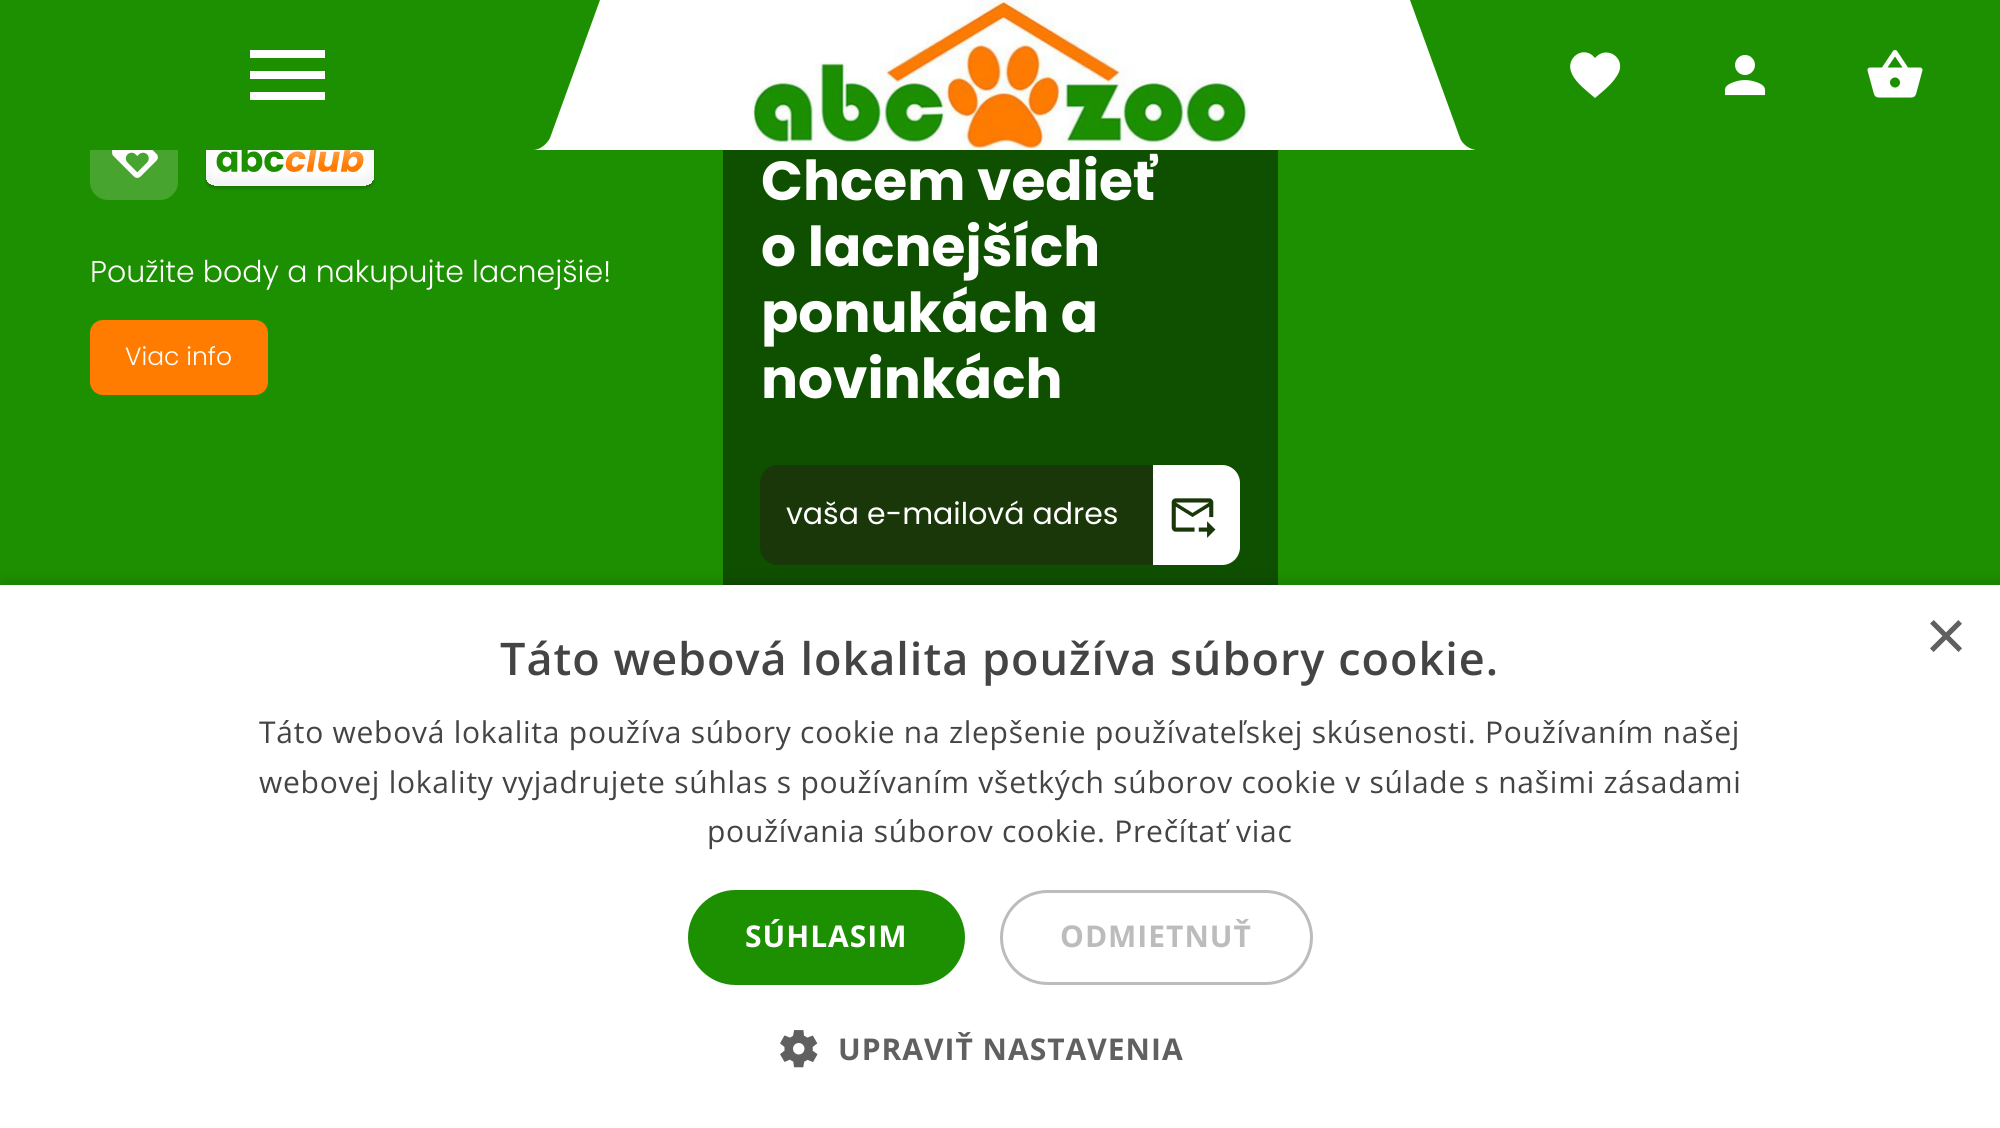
import math
import cairo

surface = cairo.ImageSurface(cairo.FORMAT_RGB24, 2000, 1128)
ctx = cairo.Context(surface)
options = cairo.FontOptions()
options.set_hint_metrics(cairo.HINT_METRICS_OFF)
options.set_hint_style(cairo.HINT_STYLE_NONE)
ctx.set_font_options(options)
ctx.set_miter_limit(4)


def set_color(code):
    ctx.set_source_rgb(*(v / 255 for v in bytes.fromhex(code[-6:])))


def draw_text(x, y, s, family, size, color, bold=False, italic=False):
    ctx.select_font_face(family, cairo.FONT_SLANT_ITALIC if italic else cairo.FONT_SLANT_NORMAL, cairo.FONT_WEIGHT_BOLD if bold else cairo.FONT_WEIGHT_NORMAL)
    ctx.set_font_size(size)
    set_color(color)
    ctx.move_to(x, y)
    ctx.show_text(s)


def draw_spaced(x, y, s, letter, word):
    ctx.move_to(x, y)
    for ch in s:
        ctx.show_text(ch)
        ctx.rel_move_to(letter + word * (ch == ' '), 0)


def fill_rect(x, y, w, h, color):
    set_color(color)
    ctx.rectangle(x, y, w, h)
    ctx.fill()


def rounded_rect(x, y, w, h, r):
    ctx.new_sub_path()
    for i, (u, v) in enumerate([(x + w - r, y + h - r), (x + r, y + h - r), (x + r, y + r), (x + w - r, y + r)]):
        ctx.arc(u, v, r, i * math.pi / 2, (i + 1) * math.pi / 2)
    ctx.close_path()


def draw_shadow(x, y, w, h, r, blur, alpha):
    ctx.push_group_with_content(cairo.CONTENT_ALPHA)
    ctx.set_operator(cairo.OPERATOR_SOURCE)
    for i in range(15, -16, -2):
        e = blur * i / 6
        if min(w, h) + 2 * e > 0:
            ctx.set_source_rgba(0, 0, 0, alpha * math.erfc((i - 1) / 8.5) / 2)
            rounded_rect(x - e, y - e, w + 2 * e, h + 2 * e, max(0, min(r + e + blur * .6, min(w, h) / 2 + e)))
            ctx.fill()
    ctx.mask(ctx.pop_group())


def draw_image(path, x, y, w, h):
    ctx.save()
    ctx.set_source_surface(cairo.ImageSurface.create_from_png(path), x, y)
    ctx.rectangle(x, y, w, h)
    ctx.fill()
    ctx.restore()


set_color("#1d9001")
ctx.paint()
set_color("#46a42f")
rounded_rect(90, 113, 88, 87, 18)
ctx.fill()
fill_rect(90, 113, 88, 37, "#1d9001")
set_color("#ffffff")
ctx.new_path()
ctx.move_to(250, 50)
ctx.line_to(325, 50)
ctx.line_to(325, 58)
ctx.line_to(250, 58)
ctx.close_path()
ctx.move_to(250, 79)
ctx.line_to(250, 71)
ctx.line_to(325, 71)
ctx.line_to(325, 79)
ctx.close_path()
ctx.move_to(250, 100)
ctx.line_to(250, 92)
ctx.line_to(325, 92)
ctx.line_to(325, 100)
ctx.close_path()
ctx.fill()
fill_rect(533, 0, 942, 150, "#ffffff")
set_color("#1d9001")
ctx.new_path()
ctx.move_to(512, 0)
ctx.line_to(600, 0)
ctx.line_to(550, 138)
ctx.curve_to(547, 144, 540, 150, 533, 150)
ctx.line_to(458, 150)
ctx.close_path()
ctx.fill()
draw_image("assets/img1.png", 752, 0, 496, 150)
ctx.new_path()
ctx.move_to(1410, 0)
ctx.line_to(1497, 0)
ctx.line_to(1552, 150)
ctx.line_to(1477, 150)
ctx.curve_to(1470, 150, 1462, 144, 1460, 138)
ctx.close_path()
ctx.fill()
set_color("#ffffff")
ctx.new_path()
ctx.move_to(1595, 98)
ctx.curve_to(1588, 92, 1576, 83, 1572, 74)
ctx.curve_to(1564, 58, 1584, 44, 1595, 58)
ctx.curve_to(1606, 45, 1625, 57, 1619, 72)
ctx.curve_to(1614, 83, 1603, 91, 1595, 98)
ctx.close_path()
ctx.fill()
draw_image("assets/img2.png", 1724, 55, 42, 41)
draw_image("assets/img3.png", 1867, 50, 56, 48)
draw_image("assets/img4.png", 112, 150, 46, 28)
draw_image("assets/img5.png", 205, 150, 170, 40)
draw_text(90, 282, "Použite body a nakupujte lacnejšie!", "Poppins Light", 30, "#ffffff")
set_color("#ff7c00")
rounded_rect(90, 320, 178, 75, 13)
ctx.fill()
draw_text(125, 365, "Viac info", "Poppins Light", 25, "#ffffff")
fill_rect(723, 150, 555, 435, "#0f4f00")
draw_text(761, 200, "Chcem vedieť", "Poppins", 55, "#ffffff", bold=True)
draw_text(761, 266, "o lacnejších", "Poppins", 55, "#ffffff", bold=True)
draw_text(761, 332, "ponukách a", "Poppins", 55, "#ffffff", bold=True)
draw_text(761, 398, "novinkách", "Poppins", 55, "#ffffff", bold=True)
set_color("#1a370a")
ctx.new_path()
ctx.move_to(778, 465)
ctx.line_to(1153, 465)
ctx.line_to(1153, 565)
ctx.line_to(778, 565)
ctx.curve_to(768, 565, 760, 557, 760, 547)
ctx.line_to(760, 483)
ctx.curve_to(760, 473, 768, 465, 778, 465)
ctx.close_path()
ctx.fill()
draw_text(786, 524, "vaša e-mailová adres", "Poppins", 30, "#ffffff")
ctx.new_path()
ctx.move_to(1153, 465)
ctx.line_to(1222, 465)
ctx.curve_to(1232, 465, 1240, 473, 1240, 483)
ctx.line_to(1240, 547)
ctx.curve_to(1240, 557, 1232, 565, 1222, 565)
ctx.line_to(1153, 565)
ctx.close_path()
ctx.fill()
draw_image("assets/img6.png", 1171, 498, 45, 40)
set_color("#000000")
draw_shadow(3, 590, 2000, 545, 0, 10, 0.35)
fill_rect(0, 585, 2000, 543, "#ffffff")
draw_text(1925, 660, "×", "Liberation Sans", 72, "#606060")
ctx.select_font_face("Open Sans SemiBold")
ctx.set_font_size(45)
set_color("#444444")
draw_spaced(500, 675, "Táto webová lokalita používa súbory cookie.", 1, 0)
ctx.select_font_face("Open Sans")
ctx.set_font_size(30)
draw_spaced(259, 743, "Táto webová lokalita používa súbory cookie na zlepšenie používateľskej skúsenosti. Používaním našej", 0.75, 0)
draw_spaced(259, 793, "webovej lokality vyjadrujete súhlas s používaním všetkých súborov cookie v súlade s našimi zásadami", 0.75, 0)
draw_spaced(707, 842, "používania súborov cookie. Prečítať viac", 0.75, 0)
set_color("#1d9001")
rounded_rect(688, 890, 277, 95, 47.5)
ctx.fill()
ctx.select_font_face("Open Sans", cairo.FONT_SLANT_NORMAL, cairo.FONT_WEIGHT_BOLD)
set_color("#ffffff")
draw_spaced(745, 947, "SÚHLASIM", 1, 0)
rounded_rect(1001.5, 891.5, 310, 92, 46)
set_color("#bcbcbc")
ctx.set_line_width(3)
ctx.stroke()
draw_spaced(1060, 947, "ODMIETNUŤ", 1, 0)
draw_image("assets/img7.png", 780, 1030, 38, 38)
set_color("#606060")
draw_spaced(838, 1060, "UPRAVIŤ NASTAVENIA", 1, 0)
surface.write_to_png("output.png")
